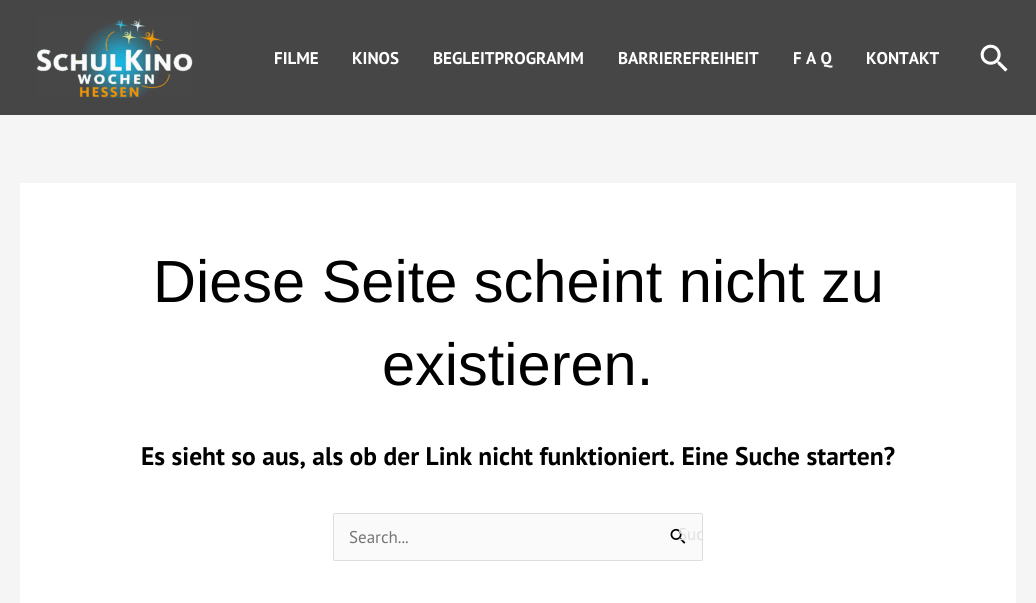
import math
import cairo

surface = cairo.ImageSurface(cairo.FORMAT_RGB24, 1036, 603)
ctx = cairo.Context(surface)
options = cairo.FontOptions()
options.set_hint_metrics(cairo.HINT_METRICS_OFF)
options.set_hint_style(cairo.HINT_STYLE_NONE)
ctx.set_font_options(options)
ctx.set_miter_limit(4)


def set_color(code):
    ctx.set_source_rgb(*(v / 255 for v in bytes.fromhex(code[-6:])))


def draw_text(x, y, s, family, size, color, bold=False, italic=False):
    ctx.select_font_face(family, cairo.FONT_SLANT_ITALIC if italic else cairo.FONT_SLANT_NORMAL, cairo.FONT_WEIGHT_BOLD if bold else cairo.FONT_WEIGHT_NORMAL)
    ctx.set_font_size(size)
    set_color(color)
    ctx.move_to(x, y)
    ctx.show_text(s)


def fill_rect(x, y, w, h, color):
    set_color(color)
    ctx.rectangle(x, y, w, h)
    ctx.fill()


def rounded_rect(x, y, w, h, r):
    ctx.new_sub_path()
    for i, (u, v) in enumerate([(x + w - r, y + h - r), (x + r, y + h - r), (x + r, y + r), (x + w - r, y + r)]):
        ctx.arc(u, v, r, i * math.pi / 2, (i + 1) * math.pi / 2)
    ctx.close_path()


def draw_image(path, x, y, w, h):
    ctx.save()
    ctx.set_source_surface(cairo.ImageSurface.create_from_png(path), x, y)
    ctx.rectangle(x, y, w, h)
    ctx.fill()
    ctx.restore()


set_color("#f5f5f5")
ctx.paint()
fill_rect(0, 0, 1036, 115, "#474647")
draw_image("assets/img1.png", 36, 18, 157, 80)
draw_text(274, 64, "FILME", "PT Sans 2", 17, "#ffffff", bold=True)
draw_text(352, 64, "KINOS", "PT Sans 2", 17, "#ffffff", bold=True)
draw_text(433, 64, "BEGLEITPROGRAMM", "PT Sans 2", 17, "#ffffff", bold=True)
draw_text(618, 64, "BARRIEREFREIHEIT", "PT Sans 2", 17, "#ffffff", bold=True)
draw_text(793, 64, "F A Q", "PT Sans 2", 17, "#ffffff", bold=True)
draw_text(866, 64, "KONTAKT", "PT Sans 2", 17, "#ffffff", bold=True)
draw_image("assets/img2.png", 980, 44, 28, 28)
fill_rect(20, 183, 996, 420, "#ffffff")
draw_text(153, 302, "Diese Seite scheint nicht zu", "Liberation Sans", 59.5, "#000000")
draw_text(382, 385, "existieren.", "Liberation Sans", 59.5, "#000000")
draw_text(141, 465, "Es sieht so aus, als ob der Link nicht funktioniert. Eine Suche starten?", "PT Sans", 25.5, "#000000", bold=True)
set_color("#fafafa")
rounded_rect(333.5, 513.5, 369, 47, 1.5)
ctx.fill_preserve()
set_color("#dddddd")
ctx.set_line_width(1)
ctx.stroke()
draw_image("assets/img3.png", 670, 528, 16, 16)
draw_text(678, 540, "Suc", "PT Sans", 17, "#e0e0e0")
draw_text(349, 543, "Search...", "PT Sans", 17, "#757575")
surface.write_to_png("output.png")
